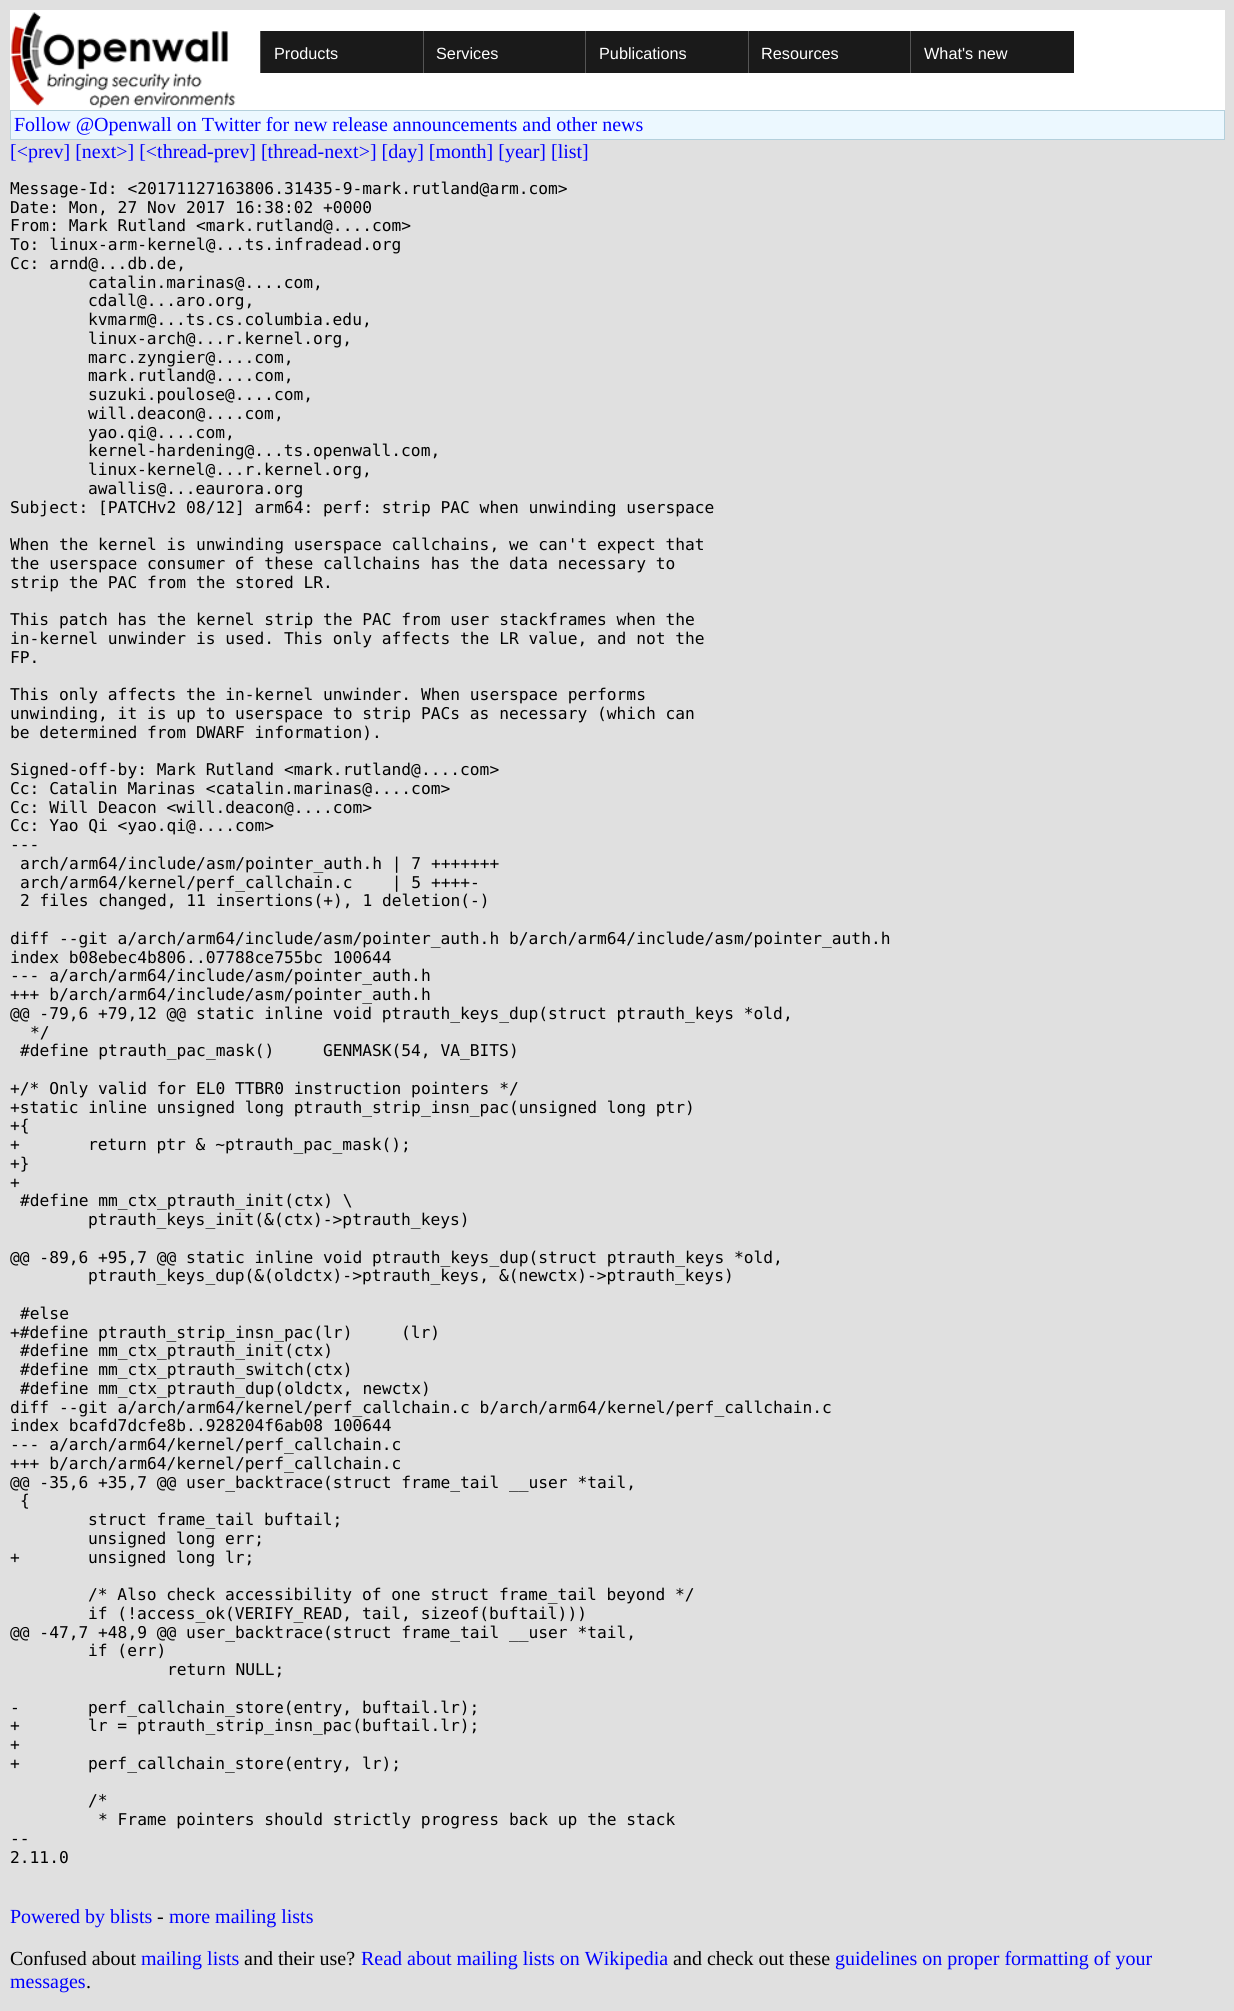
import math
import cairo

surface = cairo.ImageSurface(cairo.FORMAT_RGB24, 1234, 2011)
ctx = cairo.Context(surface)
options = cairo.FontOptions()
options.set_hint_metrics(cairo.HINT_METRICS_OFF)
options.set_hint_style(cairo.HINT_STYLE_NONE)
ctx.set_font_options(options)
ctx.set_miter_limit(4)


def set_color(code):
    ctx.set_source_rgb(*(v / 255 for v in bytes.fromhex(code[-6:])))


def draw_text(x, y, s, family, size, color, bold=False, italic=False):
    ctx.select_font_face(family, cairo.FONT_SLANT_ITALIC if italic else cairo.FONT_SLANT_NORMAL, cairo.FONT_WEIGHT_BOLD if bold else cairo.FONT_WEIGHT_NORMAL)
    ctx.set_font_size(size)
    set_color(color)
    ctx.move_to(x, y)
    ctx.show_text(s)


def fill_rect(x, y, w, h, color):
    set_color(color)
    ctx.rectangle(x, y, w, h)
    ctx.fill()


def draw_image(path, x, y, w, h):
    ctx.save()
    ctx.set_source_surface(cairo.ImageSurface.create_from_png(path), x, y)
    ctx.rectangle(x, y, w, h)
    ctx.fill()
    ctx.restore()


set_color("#e0e0e0")
ctx.paint()
fill_rect(10, 10, 1215, 100, "#ffffff")
draw_image("assets/img1.png", 11, 12, 225, 97)
fill_rect(261, 31, 162, 42, "#1a1a1a")
fill_rect(260, 31, 1, 42, "#555555")
draw_text(274, 59, "Products", "Liberation Sans", 16.25, "#ffffff")
fill_rect(424, 31, 161, 42, "#1a1a1a")
fill_rect(423, 31, 1, 42, "#555555")
draw_text(436, 59, "Services", "Liberation Sans", 16.25, "#ffffff")
fill_rect(586, 31, 162, 42, "#1a1a1a")
fill_rect(585, 31, 1, 42, "#555555")
draw_text(599, 59, "Publications", "Liberation Sans", 16.25, "#ffffff")
fill_rect(749, 31, 161, 42, "#1a1a1a")
fill_rect(748, 31, 1, 42, "#555555")
draw_text(761, 59, "Resources", "Liberation Sans", 16.25, "#ffffff")
fill_rect(911, 31, 163, 42, "#1a1a1a")
fill_rect(910, 31, 1, 42, "#555555")
draw_text(924, 59, "What's new", "Liberation Sans", 16.25, "#ffffff")
fill_rect(10, 110, 1215, 30, "#b4d0dc")
fill_rect(11, 111, 1213, 28, "#ecf8ff")
draw_text(14, 131, "Follow @Openwall on Twitter for new release announcements and other news", "Liberation Serif", 20, "#0000ff")
draw_text(10, 158, "[<prev] [next>] [<thread-prev] [thread-next>] [day] [month] [year] [list]", "Liberation Serif", 20, "#0000ff")
draw_text(10, 194, "Message-Id: <20171127163806.31435-9-mark.rutland@arm.com>", "DejaVu Sans Mono", 16.25, "#000000")
draw_text(10, 213, "Date: Mon, 27 Nov 2017 16:38:02 +0000", "DejaVu Sans Mono", 16.25, "#000000")
draw_text(10, 231, "From: Mark Rutland <mark.rutland@....com>", "DejaVu Sans Mono", 16.25, "#000000")
draw_text(10, 250, "To: linux-arm-kernel@...ts.infradead.org", "DejaVu Sans Mono", 16.25, "#000000")
draw_text(10, 269, "Cc: arnd@...db.de,", "DejaVu Sans Mono", 16.25, "#000000")
draw_text(88, 288, "catalin.marinas@....com,", "DejaVu Sans Mono", 16.25, "#000000")
draw_text(88, 306, "cdall@...aro.org,", "DejaVu Sans Mono", 16.25, "#000000")
draw_text(88, 325, "kvmarm@...ts.cs.columbia.edu,", "DejaVu Sans Mono", 16.25, "#000000")
draw_text(88, 344, "linux-arch@...r.kernel.org,", "DejaVu Sans Mono", 16.25, "#000000")
draw_text(88, 363, "marc.zyngier@....com,", "DejaVu Sans Mono", 16.25, "#000000")
draw_text(88, 381, "mark.rutland@....com,", "DejaVu Sans Mono", 16.25, "#000000")
draw_text(88, 400, "suzuki.poulose@....com,", "DejaVu Sans Mono", 16.25, "#000000")
draw_text(88, 419, "will.deacon@....com,", "DejaVu Sans Mono", 16.25, "#000000")
draw_text(88, 438, "yao.qi@....com,", "DejaVu Sans Mono", 16.25, "#000000")
draw_text(88, 456, "kernel-hardening@...ts.openwall.com,", "DejaVu Sans Mono", 16.25, "#000000")
draw_text(88, 475, "linux-kernel@...r.kernel.org,", "DejaVu Sans Mono", 16.25, "#000000")
draw_text(88, 494, "awallis@...eaurora.org", "DejaVu Sans Mono", 16.25, "#000000")
draw_text(10, 513, "Subject: [PATCHv2 08/12] arm64: perf: strip PAC when unwinding userspace", "DejaVu Sans Mono", 16.25, "#000000")
draw_text(10, 550, "When the kernel is unwinding userspace callchains, we can't expect that", "DejaVu Sans Mono", 16.25, "#000000")
draw_text(10, 569, "the userspace consumer of these callchains has the data necessary to", "DejaVu Sans Mono", 16.25, "#000000")
draw_text(10, 588, "strip the PAC from the stored LR.", "DejaVu Sans Mono", 16.25, "#000000")
draw_text(10, 625, "This patch has the kernel strip the PAC from user stackframes when the", "DejaVu Sans Mono", 16.25, "#000000")
draw_text(10, 644, "in-kernel unwinder is used. This only affects the LR value, and not the", "DejaVu Sans Mono", 16.25, "#000000")
draw_text(10, 663, "FP.", "DejaVu Sans Mono", 16.25, "#000000")
draw_text(10, 700, "This only affects the in-kernel unwinder. When userspace performs", "DejaVu Sans Mono", 16.25, "#000000")
draw_text(10, 719, "unwinding, it is up to userspace to strip PACs as necessary (which can", "DejaVu Sans Mono", 16.25, "#000000")
draw_text(10, 738, "be determined from DWARF information).", "DejaVu Sans Mono", 16.25, "#000000")
draw_text(10, 775, "Signed-off-by: Mark Rutland <mark.rutland@....com>", "DejaVu Sans Mono", 16.25, "#000000")
draw_text(10, 794, "Cc: Catalin Marinas <catalin.marinas@....com>", "DejaVu Sans Mono", 16.25, "#000000")
draw_text(10, 813, "Cc: Will Deacon <will.deacon@....com>", "DejaVu Sans Mono", 16.25, "#000000")
draw_text(10, 831, "Cc: Yao Qi <yao.qi@....com>", "DejaVu Sans Mono", 16.25, "#000000")
draw_text(10, 850, "---", "DejaVu Sans Mono", 16.25, "#000000")
draw_text(20, 869, "arch/arm64/include/asm/pointer_auth.h | 7 +++++++", "DejaVu Sans Mono", 16.25, "#000000")
draw_text(20, 888, "arch/arm64/kernel/perf_callchain.c    | 5 ++++-", "DejaVu Sans Mono", 16.25, "#000000")
draw_text(20, 906, "2 files changed, 11 insertions(+), 1 deletion(-)", "DejaVu Sans Mono", 16.25, "#000000")
draw_text(10, 944, "diff --git a/arch/arm64/include/asm/pointer_auth.h b/arch/arm64/include/asm/pointer_auth.h", "DejaVu Sans Mono", 16.25, "#000000")
draw_text(10, 963, "index b08ebec4b806..07788ce755bc 100644", "DejaVu Sans Mono", 16.25, "#000000")
draw_text(10, 981, "--- a/arch/arm64/include/asm/pointer_auth.h", "DejaVu Sans Mono", 16.25, "#000000")
draw_text(10, 1000, "+++ b/arch/arm64/include/asm/pointer_auth.h", "DejaVu Sans Mono", 16.25, "#000000")
draw_text(10, 1019, "@@ -79,6 +79,12 @@ static inline void ptrauth_keys_dup(struct ptrauth_keys *old,", "DejaVu Sans Mono", 16.25, "#000000")
draw_text(30, 1038, "*/", "DejaVu Sans Mono", 16.25, "#000000")
draw_text(20, 1056, "#define ptrauth_pac_mask()", "DejaVu Sans Mono", 16.25, "#000000")
draw_text(323, 1056, "GENMASK(54, VA_BITS)", "DejaVu Sans Mono", 16.25, "#000000")
draw_text(10, 1094, "+/* Only valid for EL0 TTBR0 instruction pointers */", "DejaVu Sans Mono", 16.25, "#000000")
draw_text(10, 1113, "+static inline unsigned long ptrauth_strip_insn_pac(unsigned long ptr)", "DejaVu Sans Mono", 16.25, "#000000")
draw_text(10, 1131, "+{", "DejaVu Sans Mono", 16.25, "#000000")
draw_text(10, 1150, "+", "DejaVu Sans Mono", 16.25, "#000000")
draw_text(88, 1150, "return ptr & ~ptrauth_pac_mask();", "DejaVu Sans Mono", 16.25, "#000000")
draw_text(10, 1169, "+}", "DejaVu Sans Mono", 16.25, "#000000")
draw_text(10, 1188, "+", "DejaVu Sans Mono", 16.25, "#000000")
draw_text(20, 1206, "#define mm_ctx_ptrauth_init(ctx) \\", "DejaVu Sans Mono", 16.25, "#000000")
draw_text(88, 1225, "ptrauth_keys_init(&(ctx)->ptrauth_keys)", "DejaVu Sans Mono", 16.25, "#000000")
draw_text(10, 1263, "@@ -89,6 +95,7 @@ static inline void ptrauth_keys_dup(struct ptrauth_keys *old,", "DejaVu Sans Mono", 16.25, "#000000")
draw_text(88, 1281, "ptrauth_keys_dup(&(oldctx)->ptrauth_keys, &(newctx)->ptrauth_keys)", "DejaVu Sans Mono", 16.25, "#000000")
draw_text(20, 1319, "#else", "DejaVu Sans Mono", 16.25, "#000000")
draw_text(10, 1338, "+#define ptrauth_strip_insn_pac(lr)", "DejaVu Sans Mono", 16.25, "#000000")
draw_text(401, 1338, "(lr)", "DejaVu Sans Mono", 16.25, "#000000")
draw_text(20, 1356, "#define mm_ctx_ptrauth_init(ctx)", "DejaVu Sans Mono", 16.25, "#000000")
draw_text(20, 1375, "#define mm_ctx_ptrauth_switch(ctx)", "DejaVu Sans Mono", 16.25, "#000000")
draw_text(20, 1394, "#define mm_ctx_ptrauth_dup(oldctx, newctx)", "DejaVu Sans Mono", 16.25, "#000000")
draw_text(10, 1413, "diff --git a/arch/arm64/kernel/perf_callchain.c b/arch/arm64/kernel/perf_callchain.c", "DejaVu Sans Mono", 16.25, "#000000")
draw_text(10, 1431, "index bcafd7dcfe8b..928204f6ab08 100644", "DejaVu Sans Mono", 16.25, "#000000")
draw_text(10, 1450, "--- a/arch/arm64/kernel/perf_callchain.c", "DejaVu Sans Mono", 16.25, "#000000")
draw_text(10, 1469, "+++ b/arch/arm64/kernel/perf_callchain.c", "DejaVu Sans Mono", 16.25, "#000000")
draw_text(10, 1488, "@@ -35,6 +35,7 @@ user_backtrace(struct frame_tail __user *tail,", "DejaVu Sans Mono", 16.25, "#000000")
draw_text(20, 1506, "{", "DejaVu Sans Mono", 16.25, "#000000")
draw_text(88, 1525, "struct frame_tail buftail;", "DejaVu Sans Mono", 16.25, "#000000")
draw_text(88, 1544, "unsigned long err;", "DejaVu Sans Mono", 16.25, "#000000")
draw_text(10, 1563, "+", "DejaVu Sans Mono", 16.25, "#000000")
draw_text(88, 1563, "unsigned long lr;", "DejaVu Sans Mono", 16.25, "#000000")
draw_text(88, 1600, "/* Also check accessibility of one struct frame_tail beyond */", "DejaVu Sans Mono", 16.25, "#000000")
draw_text(88, 1619, "if (!access_ok(VERIFY_READ, tail, sizeof(buftail)))", "DejaVu Sans Mono", 16.25, "#000000")
draw_text(10, 1638, "@@ -47,7 +48,9 @@ user_backtrace(struct frame_tail __user *tail,", "DejaVu Sans Mono", 16.25, "#000000")
draw_text(88, 1656, "if (err)", "DejaVu Sans Mono", 16.25, "#000000")
draw_text(167, 1675, "return NULL;", "DejaVu Sans Mono", 16.25, "#000000")
draw_text(10, 1713, "-", "DejaVu Sans Mono", 16.25, "#000000")
draw_text(88, 1713, "perf_callchain_store(entry, buftail.lr);", "DejaVu Sans Mono", 16.25, "#000000")
draw_text(10, 1731, "+", "DejaVu Sans Mono", 16.25, "#000000")
draw_text(88, 1731, "lr = ptrauth_strip_insn_pac(buftail.lr);", "DejaVu Sans Mono", 16.25, "#000000")
draw_text(10, 1750, "+", "DejaVu Sans Mono", 16.25, "#000000")
draw_text(10, 1769, "+", "DejaVu Sans Mono", 16.25, "#000000")
draw_text(88, 1769, "perf_callchain_store(entry, lr);", "DejaVu Sans Mono", 16.25, "#000000")
draw_text(88, 1806, "/*", "DejaVu Sans Mono", 16.25, "#000000")
draw_text(98, 1825, "* Frame pointers should strictly progress back up the stack", "DejaVu Sans Mono", 16.25, "#000000")
draw_text(10, 1844, "--", "DejaVu Sans Mono", 16.25, "#000000")
draw_text(10, 1863, "2.11.0", "DejaVu Sans Mono", 16.25, "#000000")
draw_text(10, 1923, "Powered by blists", "Liberation Serif", 20, "#0000ff")
draw_text(157, 1923, "-", "Liberation Serif", 20, "#000000")
draw_text(169, 1923, "more mailing lists", "Liberation Serif", 20, "#0000ff")
draw_text(10, 1965, "Confused about", "Liberation Serif", 20, "#000000")
draw_text(141, 1965, "mailing lists", "Liberation Serif", 20, "#0000ff")
draw_text(244, 1965, "and their use?", "Liberation Serif", 20, "#000000")
draw_text(361, 1965, "Read about mailing lists on Wikipedia", "Liberation Serif", 20, "#0000ff")
draw_text(673, 1965, "and check out these", "Liberation Serif", 20, "#000000")
draw_text(835, 1965, "guidelines on proper formatting of your", "Liberation Serif", 20, "#0000ff")
draw_text(10, 1988, "messages", "Liberation Serif", 20, "#0000ff")
draw_text(86, 1988, ".", "Liberation Serif", 20, "#000000")
surface.write_to_png("output.png")
